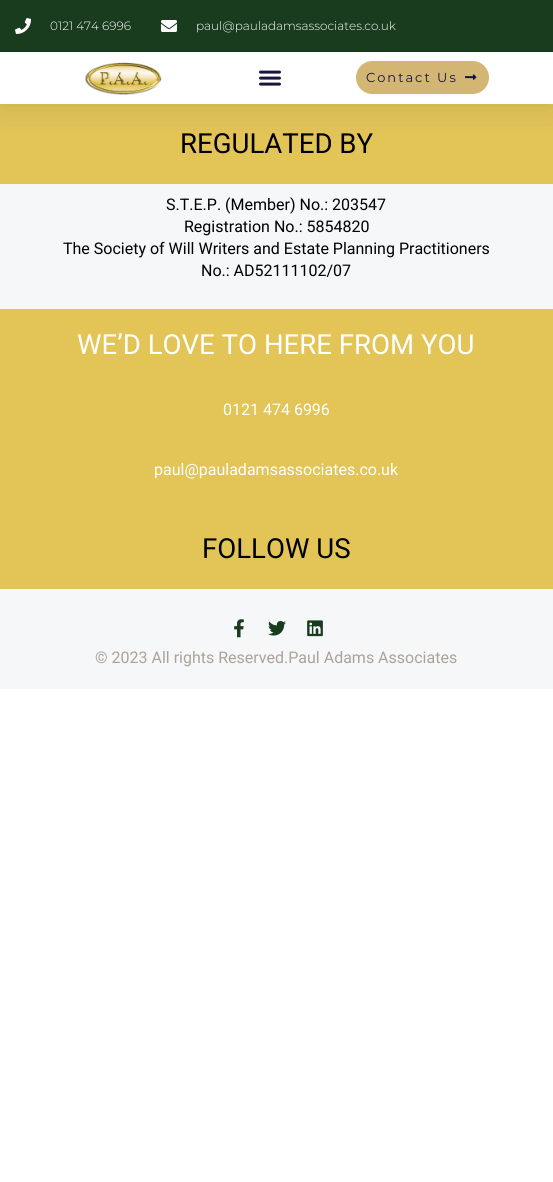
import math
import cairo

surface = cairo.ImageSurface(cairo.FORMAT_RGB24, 553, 1182)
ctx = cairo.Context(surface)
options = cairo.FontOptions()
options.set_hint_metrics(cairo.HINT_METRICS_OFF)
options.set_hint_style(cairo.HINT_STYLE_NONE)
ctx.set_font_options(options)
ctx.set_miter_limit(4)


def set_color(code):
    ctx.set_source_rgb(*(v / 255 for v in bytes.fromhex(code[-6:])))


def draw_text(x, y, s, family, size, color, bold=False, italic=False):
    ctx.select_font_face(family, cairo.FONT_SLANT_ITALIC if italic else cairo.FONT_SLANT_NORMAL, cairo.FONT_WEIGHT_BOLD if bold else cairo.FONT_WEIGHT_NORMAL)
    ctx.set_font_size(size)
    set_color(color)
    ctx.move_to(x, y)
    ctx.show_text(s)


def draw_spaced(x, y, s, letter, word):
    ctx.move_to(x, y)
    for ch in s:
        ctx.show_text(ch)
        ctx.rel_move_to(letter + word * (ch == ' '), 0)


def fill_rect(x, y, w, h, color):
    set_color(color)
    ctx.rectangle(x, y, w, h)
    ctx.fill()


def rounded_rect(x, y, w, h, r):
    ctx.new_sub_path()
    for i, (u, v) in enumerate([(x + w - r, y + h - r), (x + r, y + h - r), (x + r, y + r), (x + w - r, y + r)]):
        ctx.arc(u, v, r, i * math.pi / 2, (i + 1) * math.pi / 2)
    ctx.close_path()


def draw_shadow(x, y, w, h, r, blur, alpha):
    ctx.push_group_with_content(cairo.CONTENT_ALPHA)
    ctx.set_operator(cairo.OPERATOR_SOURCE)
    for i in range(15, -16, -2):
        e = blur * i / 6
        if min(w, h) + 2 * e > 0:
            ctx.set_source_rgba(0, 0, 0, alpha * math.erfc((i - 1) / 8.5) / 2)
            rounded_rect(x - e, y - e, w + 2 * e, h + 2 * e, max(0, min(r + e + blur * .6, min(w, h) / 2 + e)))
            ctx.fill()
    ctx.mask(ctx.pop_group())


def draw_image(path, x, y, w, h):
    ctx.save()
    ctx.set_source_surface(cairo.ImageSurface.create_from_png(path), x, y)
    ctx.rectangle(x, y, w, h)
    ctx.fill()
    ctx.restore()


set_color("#ffffff")
ctx.paint()
fill_rect(0, 104, 553, 80, "#e2c457")
set_color("#000000")
draw_shadow(0, 5, 553, 104, 0, 15, 0.1)
fill_rect(0, 0, 553, 52, "#193b1e")
draw_image("assets/img1.png", 15, 18, 16, 16)
draw_text(50, 30, "0121 474 6996", "Montserrat Light", 12, "#ffffff")
draw_image("assets/img2.png", 161, 20, 16, 12)
draw_text(196, 30, "paul@pauladamsassociates.co.uk", "Montserrat Light", 12, "#ffffff")
fill_rect(0, 52, 553, 52, "#ffffff")
draw_image("assets/img3.png", 85, 62, 77, 33)
draw_image("assets/img4.png", 259, 70, 22, 16)
set_color("#d3b574")
rounded_rect(356, 61, 133, 33, 16.5)
ctx.fill()
ctx.select_font_face("Montserrat")
ctx.set_font_size(13)
set_color("#16163f")
draw_spaced(366, 82, "Contact Us", 2, 0)
draw_image("assets/img5.png", 465, 74, 12, 6)
fill_rect(0, 184, 553, 505, "#f6f7f8")
draw_text(180, 153, "REGULATED BY", "Roboto", 27.6, "#000000")
draw_text(166, 210, "S.T.E.P. (Member) No.: 203547", "Roboto", 16, "#000000")
draw_text(184, 232, "Registration No.: 5854820", "Roboto", 16, "#000000")
draw_text(63, 254, "The Society of Will Writers and Estate Planning Practitioners", "Roboto", 16, "#000000")
draw_text(201, 276, "No.: AD52111102/07", "Roboto", 16, "#000000")
fill_rect(0, 309, 553, 280, "#e2c457")
draw_text(77, 354, "WE’D LOVE TO HERE FROM YOU", "Roboto", 27.6, "#ffffff")
draw_text(223, 415, "0121 474 6996", "Roboto", 16, "#ffffff")
draw_text(154, 475, "paul@pauladamsassociates.co.uk", "Roboto", 16, "#ffffff")
draw_text(202, 558, "FOLLOW US", "Roboto", 27.6, "#000000")
draw_image("assets/img6.png", 234, 619, 10, 19)
draw_image("assets/img7.png", 268, 620, 18, 16)
draw_image("assets/img8.png", 307, 620, 16, 17)
draw_text(95, 663, "© 2023 All rights Reserved.Paul Adams Associates", "Roboto", 16, "#aca298")
surface.write_to_png("output.png")
